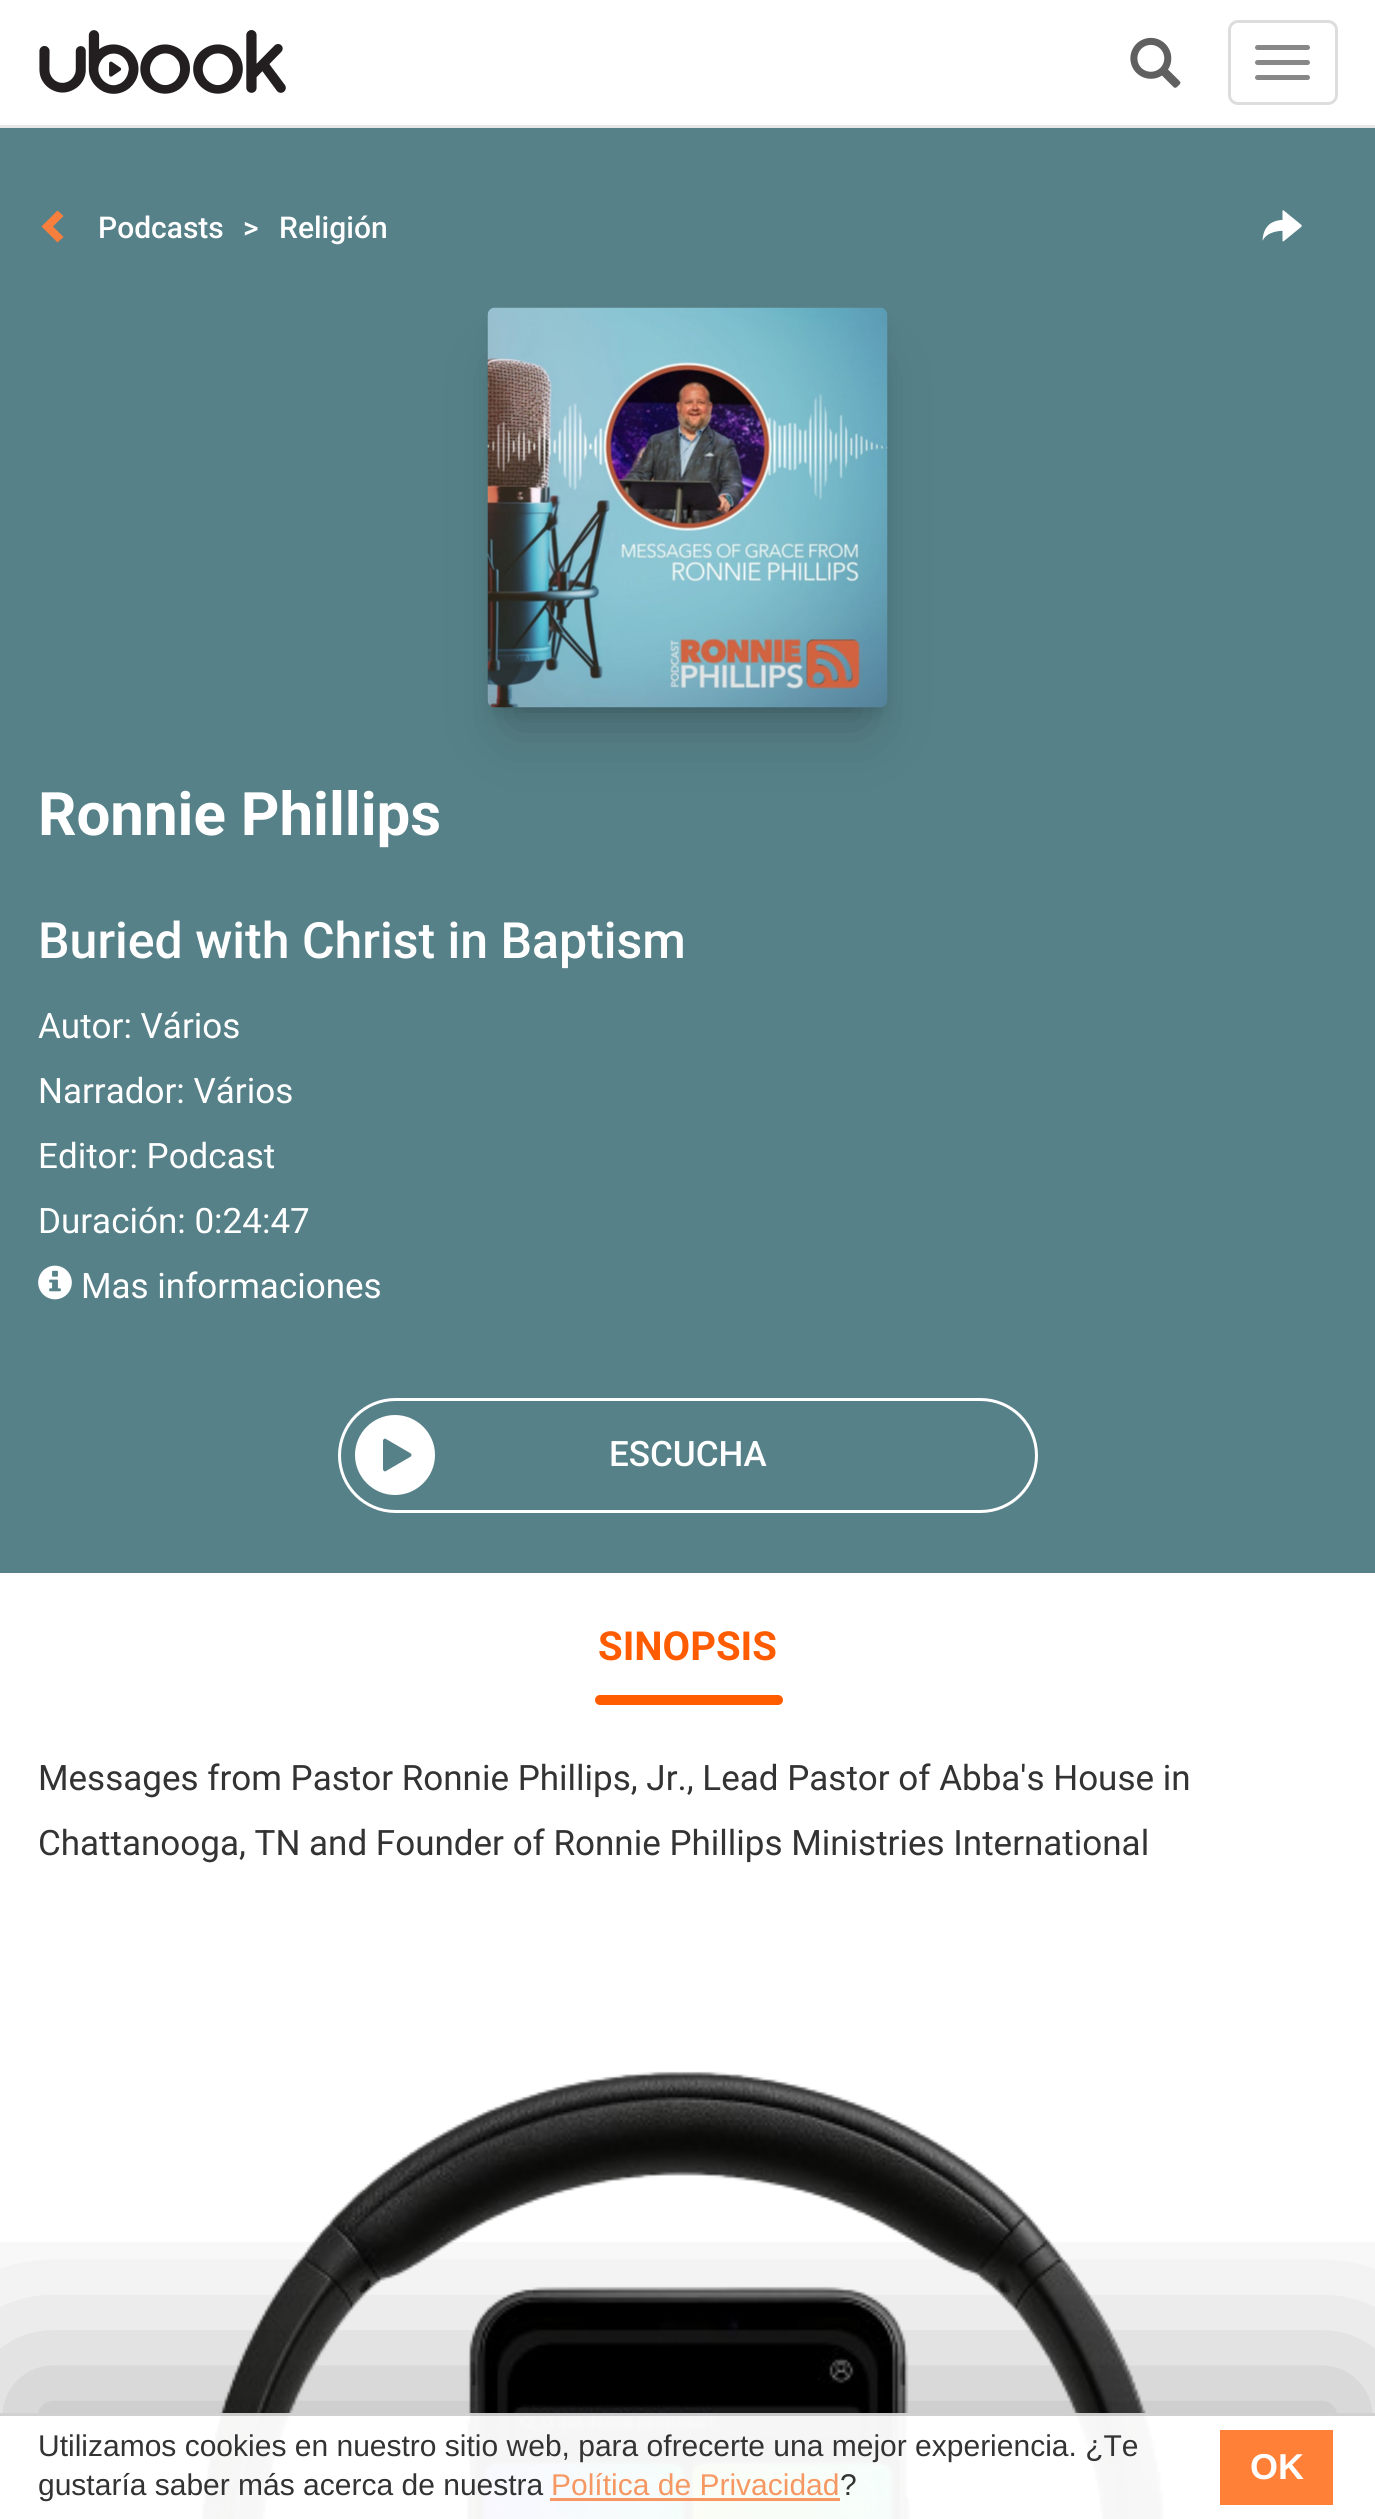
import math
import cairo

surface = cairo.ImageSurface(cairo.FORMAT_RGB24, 1375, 2519)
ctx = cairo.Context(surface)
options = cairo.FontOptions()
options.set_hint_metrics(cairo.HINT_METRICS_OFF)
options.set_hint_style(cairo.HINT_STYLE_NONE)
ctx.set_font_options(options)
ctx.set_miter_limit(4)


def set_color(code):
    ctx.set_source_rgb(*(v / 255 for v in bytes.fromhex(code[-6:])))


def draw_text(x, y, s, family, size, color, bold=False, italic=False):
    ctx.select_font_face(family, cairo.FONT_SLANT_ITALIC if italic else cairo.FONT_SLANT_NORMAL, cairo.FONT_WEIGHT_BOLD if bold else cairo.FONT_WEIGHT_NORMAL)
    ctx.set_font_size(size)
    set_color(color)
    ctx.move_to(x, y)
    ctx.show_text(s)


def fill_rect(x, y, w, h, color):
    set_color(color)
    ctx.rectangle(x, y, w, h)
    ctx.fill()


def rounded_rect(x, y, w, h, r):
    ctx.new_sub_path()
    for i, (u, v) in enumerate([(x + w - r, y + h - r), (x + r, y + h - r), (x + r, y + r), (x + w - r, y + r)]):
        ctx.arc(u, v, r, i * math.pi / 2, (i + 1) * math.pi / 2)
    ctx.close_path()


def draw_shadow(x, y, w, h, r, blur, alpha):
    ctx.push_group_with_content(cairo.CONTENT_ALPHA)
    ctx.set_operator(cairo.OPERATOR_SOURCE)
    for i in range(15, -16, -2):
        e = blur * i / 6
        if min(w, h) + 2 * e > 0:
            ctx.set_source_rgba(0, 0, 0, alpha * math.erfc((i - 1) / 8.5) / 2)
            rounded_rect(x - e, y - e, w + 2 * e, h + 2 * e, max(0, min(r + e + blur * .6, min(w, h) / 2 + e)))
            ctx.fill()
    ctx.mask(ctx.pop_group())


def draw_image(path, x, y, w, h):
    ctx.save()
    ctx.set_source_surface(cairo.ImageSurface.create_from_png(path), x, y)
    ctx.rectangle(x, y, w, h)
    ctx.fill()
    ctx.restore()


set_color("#ffffff")
ctx.paint()
fill_rect(0, 125, 1375, 3, "#e7e7e7")
draw_image("assets/img1.png", 39, 30, 247, 64)
draw_image("assets/img2.png", 1130, 37, 51, 51)
rounded_rect(1229.5, 21.5, 107, 82, 8.5)
set_color("#dddddd")
ctx.set_line_width(3)
ctx.stroke()
set_color("#888888")
rounded_rect(1255, 45, 55, 5, 2.5)
ctx.fill()
rounded_rect(1255, 60, 55, 5, 2.5)
ctx.fill()
rounded_rect(1255, 75, 55, 5, 2.5)
ctx.fill()
fill_rect(0, 128, 1375, 1445, "#568188")
set_color("#f67f3e")
ctx.new_path()
ctx.move_to(63.5, 216)
ctx.line_to(53, 226.5)
ctx.line_to(63.5, 237)
ctx.line_to(57.5, 242.5)
ctx.line_to(41.5, 226.5)
ctx.line_to(57.5, 210.5)
ctx.close_path()
ctx.fill()
draw_text(98, 238, "Podcasts", "Roboto Medium", 30, "#ffffff")
draw_text(243, 238, ">", "Roboto Medium", 30, "#ffffff")
draw_text(279, 238, "Religión", "Roboto Medium", 30, "#ffffff")
draw_image("assets/img3.png", 1262, 210, 40, 32)
set_color("#000000")
draw_shadow(498, 328, 380, 380, 0, 10, 0.2)
draw_shadow(508, 368, 360, 360, 0, 30, 0.2)
draw_image("assets/img4.png", 487, 307, 401, 401)
draw_text(38, 835, "Ronnie Phillips", "Roboto", 60, "#ffffff", bold=True)
draw_text(38, 958, "Buried with Christ in Baptism", "Roboto Medium", 50, "#ffffff")
draw_text(38, 1038, "Autor: Vários", "Roboto", 35, "#ffffff")
draw_text(38, 1103, "Narrador: Vários", "Roboto", 35, "#ffffff")
draw_text(38, 1168, "Editor: Podcast", "Roboto", 35, "#ffffff")
draw_text(38, 1233, "Duración: 0:24:47", "Roboto", 35, "#ffffff")
draw_image("assets/img5.png", 38, 1265, 34, 35)
draw_text(81, 1298, "Mas informaciones", "Roboto", 35, "#ffffff")
rounded_rect(339.5, 1399.5, 697, 112, 56)
ctx.stroke()
ctx.new_path()
ctx.move_to(395, 1415)
ctx.curve_to(373, 1415, 355, 1433, 355, 1455)
ctx.curve_to(355, 1477, 373, 1495, 395, 1495)
ctx.curve_to(417, 1495, 435, 1477, 435, 1455)
ctx.curve_to(435, 1433, 417, 1415, 395, 1415)
ctx.close_path()
ctx.move_to(410, 1457)
ctx.line_to(386, 1471)
ctx.curve_to(385, 1472, 383, 1471, 383, 1469)
ctx.line_to(383, 1441)
ctx.curve_to(383, 1439, 385, 1438, 386, 1439)
ctx.line_to(410, 1453)
ctx.curve_to(412, 1454, 412, 1456, 410, 1457)
ctx.close_path()
ctx.fill()
draw_text(609, 1466, "ESCUCHA", "Roboto Medium", 35, "#ffffff")
draw_text(598, 1660, "SINOPSIS", "Roboto", 40, "#ff5b00", bold=True)
rounded_rect(595, 1695, 188, 10, 5)
ctx.fill()
draw_text(38, 1790, "Messages from Pastor Ronnie Phillips, Jr., Lead Pastor of Abba's House in", "Roboto", 35, "#333333")
draw_text(38, 1855, "Chattanooga, TN and Founder of Ronnie Phillips Ministries International", "Roboto", 35, "#333333")
draw_image("assets/img6.png", 201, 2071, 965, 448)
ctx.save()
ctx.rectangle(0, 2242, 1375, 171)
ctx.clip()
set_color("#000000")
draw_shadow(20, 2383, 1335, 67, 0, 106, 0.3)
ctx.restore()
ctx.set_source_rgba(1, 1, 1, 0.96)
ctx.rectangle(201, 2413, 965, 106)
ctx.fill()
ctx.set_source_rgba(0, 0, 0, 0.18)
ctx.rectangle(0, 2413, 1375, 3)
ctx.fill()
draw_text(38, 2456, "Utilizamos cookies en nuestro sitio web, para ofrecerte una mejor experiencia. ¿Te", "Liberation Sans", 30, "#333333")
draw_text(38, 2495, "gustaría saber más acerca de nuestra", "Liberation Sans", 30, "#333333")
draw_text(551, 2495, "Política de Privacidad", "Liberation Sans", 30, "#f69863")
ctx.set_source_rgba(0.965, 0.498, 0.243, 0.8)
ctx.rectangle(550, 2498, 290, 3)
ctx.fill()
draw_text(840, 2495, "?", "Liberation Sans", 30, "#333333")
fill_rect(1220, 2430, 113, 75, "#ff8036")
draw_text(1250, 2479, "OK", "Liberation Sans", 36, "#ffffff", bold=True)
surface.write_to_png("output.png")
